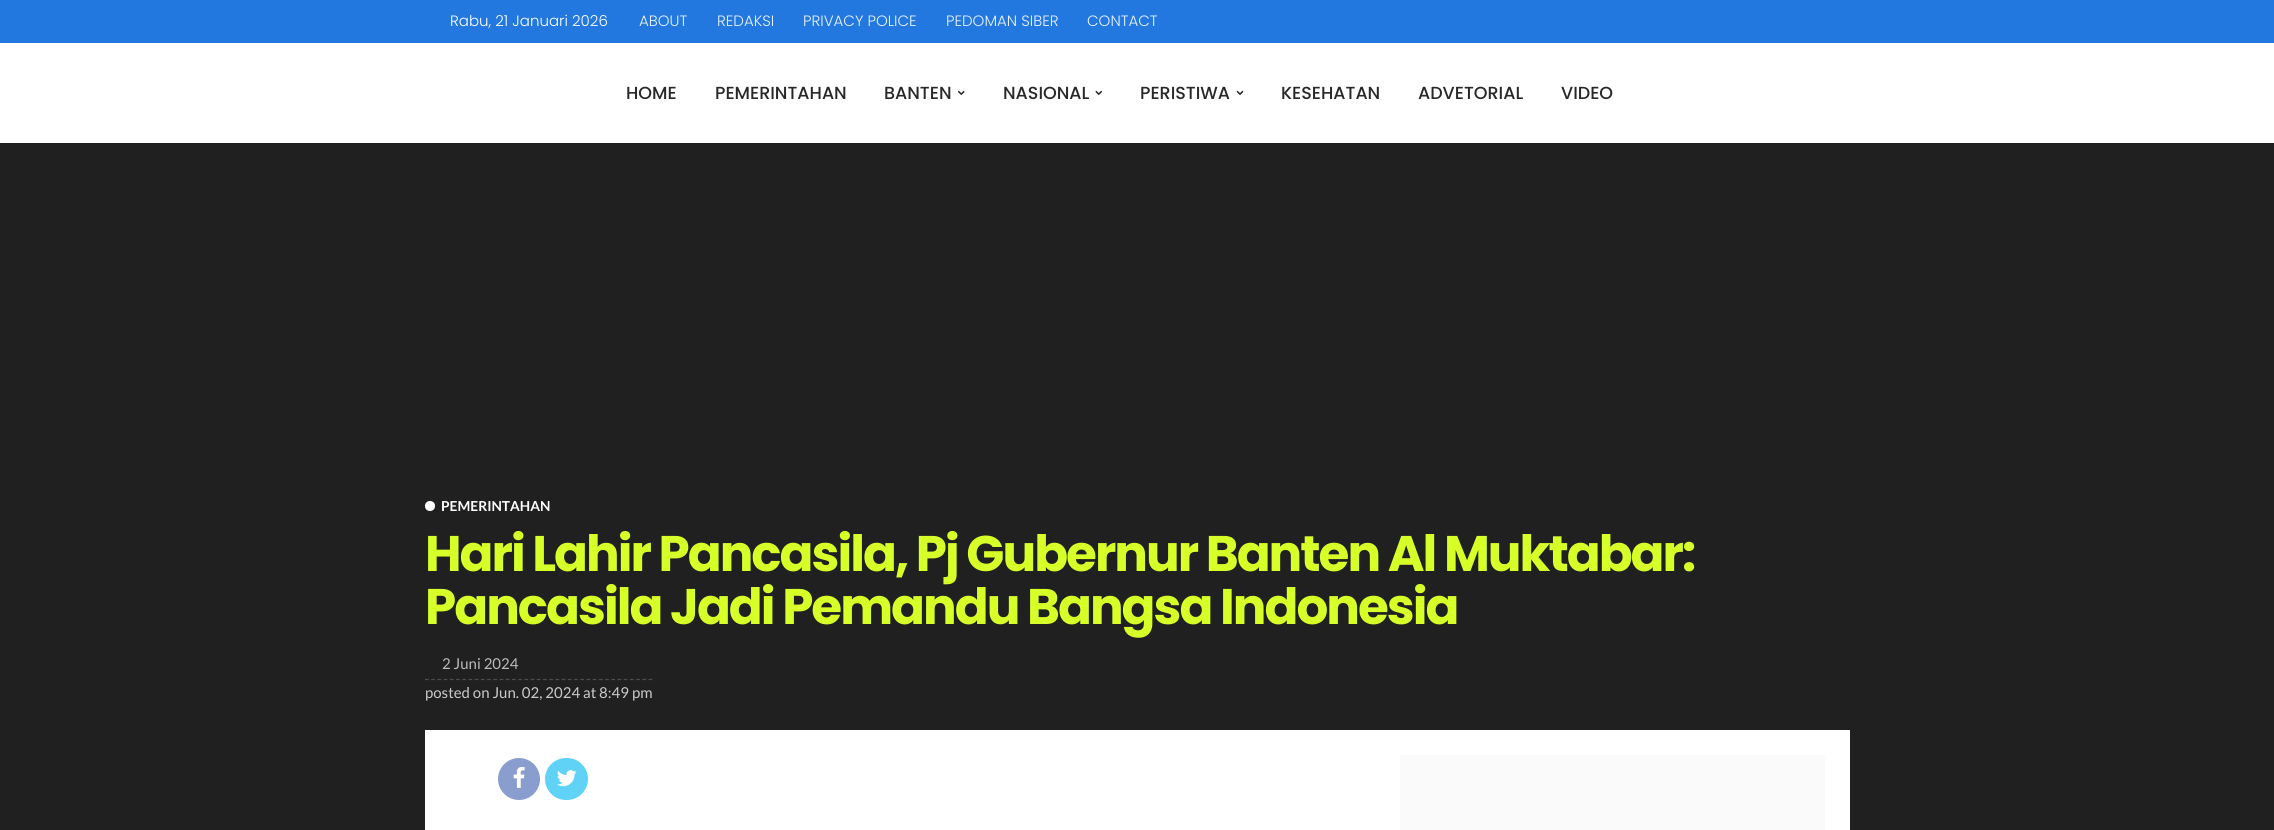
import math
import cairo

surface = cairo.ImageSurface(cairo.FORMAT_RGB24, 2274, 830)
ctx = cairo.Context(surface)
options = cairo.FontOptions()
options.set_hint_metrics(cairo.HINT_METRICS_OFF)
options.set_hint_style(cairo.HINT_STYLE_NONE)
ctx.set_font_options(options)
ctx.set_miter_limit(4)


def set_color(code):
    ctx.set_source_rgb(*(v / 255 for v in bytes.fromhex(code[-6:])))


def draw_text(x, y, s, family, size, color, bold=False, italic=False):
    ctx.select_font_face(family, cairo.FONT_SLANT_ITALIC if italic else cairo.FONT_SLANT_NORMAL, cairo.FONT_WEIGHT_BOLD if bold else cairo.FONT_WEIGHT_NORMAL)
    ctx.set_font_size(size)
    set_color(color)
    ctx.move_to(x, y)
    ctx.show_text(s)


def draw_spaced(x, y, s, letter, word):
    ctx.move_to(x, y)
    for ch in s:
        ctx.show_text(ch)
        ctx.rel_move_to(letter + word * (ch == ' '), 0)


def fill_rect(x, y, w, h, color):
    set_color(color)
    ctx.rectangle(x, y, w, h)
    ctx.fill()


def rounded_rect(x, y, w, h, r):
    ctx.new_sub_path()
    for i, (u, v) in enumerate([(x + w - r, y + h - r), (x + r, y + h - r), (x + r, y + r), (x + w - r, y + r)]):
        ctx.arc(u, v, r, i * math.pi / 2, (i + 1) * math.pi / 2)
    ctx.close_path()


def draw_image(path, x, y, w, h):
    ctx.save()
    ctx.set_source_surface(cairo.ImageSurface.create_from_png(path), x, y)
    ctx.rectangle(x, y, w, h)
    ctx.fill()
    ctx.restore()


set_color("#202020")
ctx.paint()
fill_rect(0, 0, 2274, 43, "#2378e0")
draw_text(450, 26, "Rabu, 21 Januari 2026", "Poppins Light", 15, "#ffffff")
draw_text(639, 26, "ABOUT", "Poppins Light", 15, "#e9f2fc")
draw_text(717, 26, "REDAKSI", "Poppins Light", 15, "#e9f2fc")
draw_text(803, 26, "PRIVACY POLICE", "Poppins Light", 15, "#e9f2fc")
draw_text(946, 26, "PEDOMAN SIBER", "Poppins Light", 15, "#e9f2fc")
draw_text(1087, 26, "CONTACT", "Poppins Light", 15, "#e9f2fc")
fill_rect(0, 43, 2274, 100, "#ffffff")
draw_text(626, 99, "HOME", "Poppins Medium", 17.5, "#282828")
draw_text(715, 99, "PEMERINTAHAN", "Poppins Medium", 17.5, "#282828")
draw_text(884, 99, "BANTEN", "Poppins Medium", 17.5, "#282828")
draw_image("assets/img1.png", 957, 90, 8, 6)
draw_text(1003, 99, "NASIONAL", "Poppins Medium", 17.5, "#282828")
draw_image("assets/img2.png", 1095, 90, 8, 6)
draw_text(1140, 99, "PERISTIWA", "Poppins Medium", 17.5, "#282828")
draw_image("assets/img3.png", 1236, 90, 8, 5)
draw_text(1281, 99, "KESEHATAN", "Poppins Medium", 17.5, "#282828")
draw_text(1418, 99, "ADVETORIAL", "Poppins Medium", 17.5, "#282828")
draw_text(1561, 99, "VIDEO", "Poppins Medium", 17.5, "#282828")
set_color("#ffffff")
ctx.new_path()
ctx.arc(430, 506, 5, 0, 2 * math.pi)
ctx.fill()
draw_text(441, 511, "PEMERINTAHAN", "Lato", 13.75, "#ffffff", bold=True)
ctx.select_font_face("Poppins", cairo.FONT_SLANT_NORMAL, cairo.FONT_WEIGHT_BOLD)
ctx.set_font_size(50)
set_color("#d7ff28")
draw_spaced(425, 571, "Hari Lahir Pancasila, Pj Gubernur Banten Al Muktabar:", -2, 0)
draw_spaced(425, 624, "Pancasila Jadi Pemandu Bangsa Indonesia", -2, 0)
draw_text(442, 669, "2 Juni 2024", "Lato", 15, "#bbbbbb")
ctx.new_path()
ctx.move_to(425, 679.5)
ctx.line_to(652.5, 679.5)
set_color("#4d4d4d")
ctx.set_line_width(1.2)
ctx.set_dash([3.75, 2.46])
ctx.stroke()
draw_text(425, 698, "posted on Jun. 02, 2024 at 8:49 pm", "Lato", 15, "#cbcbcb")
fill_rect(425, 730, 1425, 100, "#ffffff")
set_color("#899dce")
ctx.new_path()
ctx.arc(519, 779, 21, 0, 2 * math.pi)
ctx.fill()
draw_image("assets/img4.png", 513, 767, 12, 21)
set_color("#60d2f5")
rounded_rect(545, 758, 43, 42, 21)
ctx.fill()
draw_image("assets/img5.png", 557, 770, 20, 17)
set_color("#fafafa")
rounded_rect(1400, 755, 425, 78, 2.5)
ctx.fill()
surface.write_to_png("output.png")
